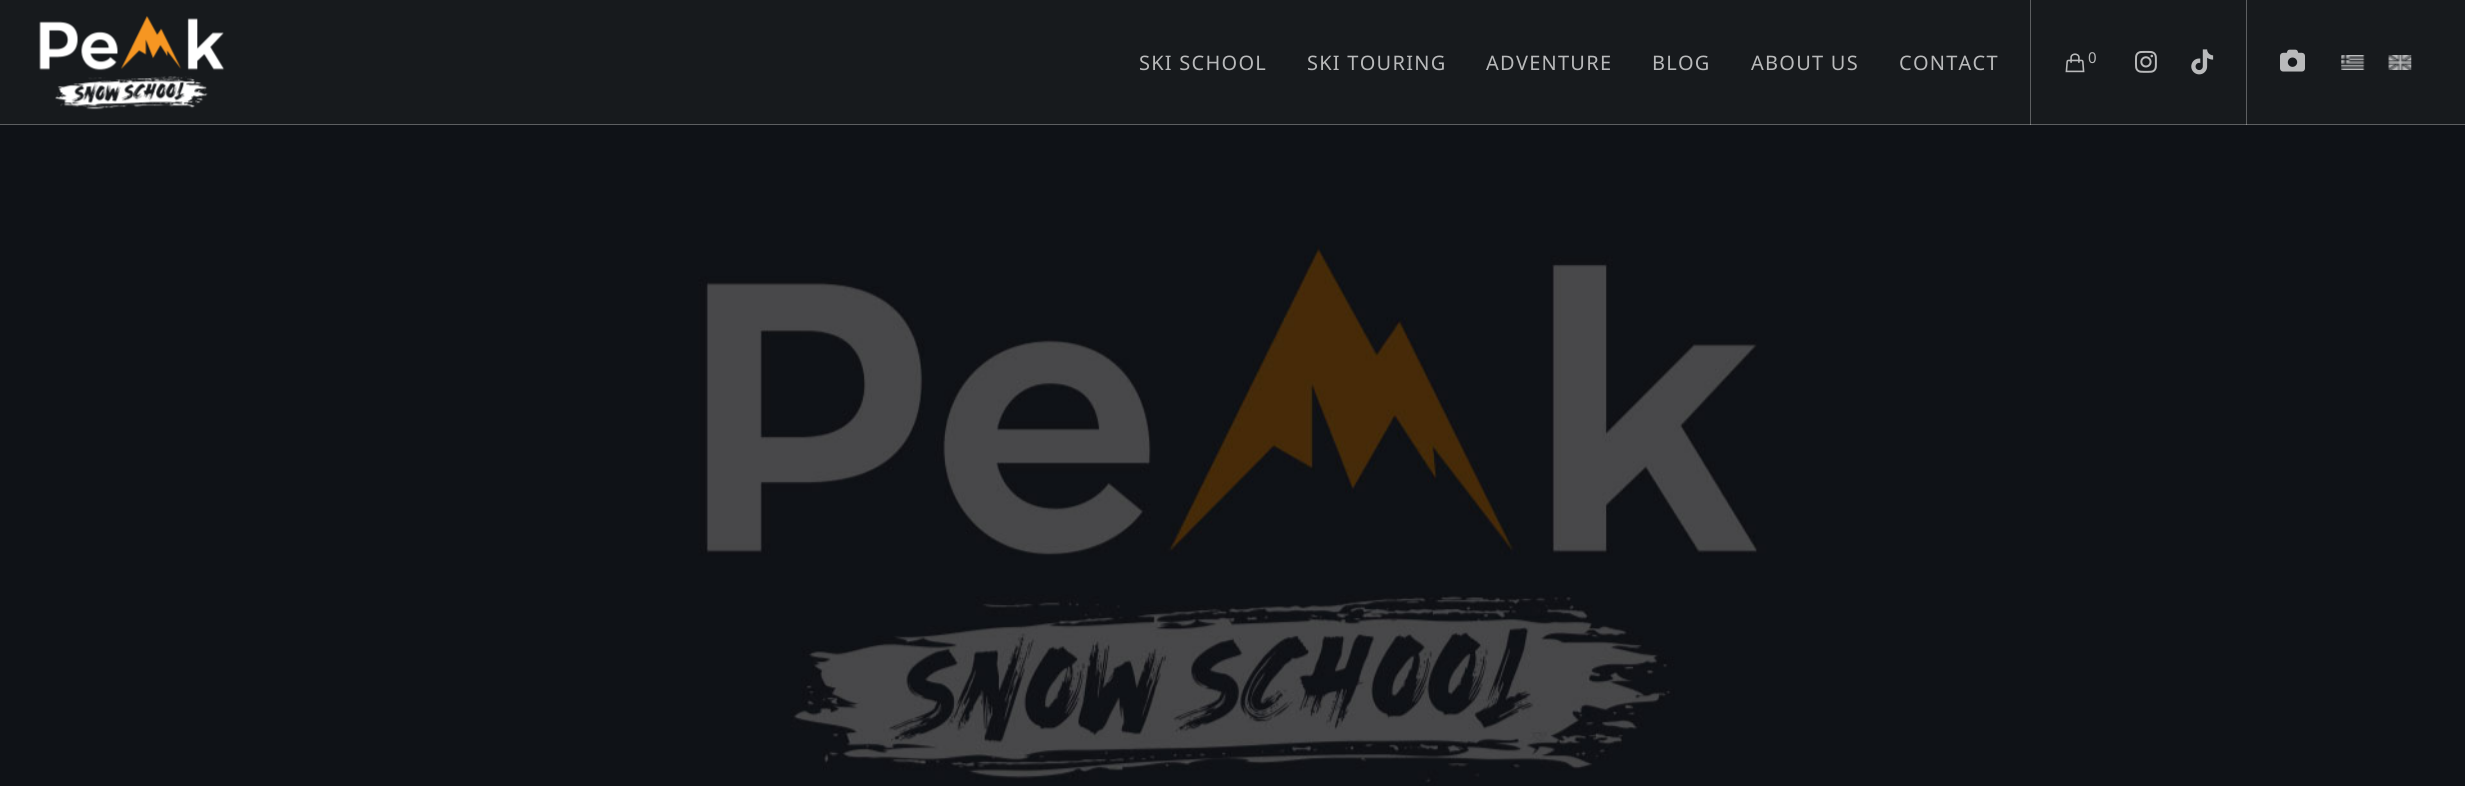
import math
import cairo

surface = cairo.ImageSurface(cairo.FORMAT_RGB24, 2465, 786)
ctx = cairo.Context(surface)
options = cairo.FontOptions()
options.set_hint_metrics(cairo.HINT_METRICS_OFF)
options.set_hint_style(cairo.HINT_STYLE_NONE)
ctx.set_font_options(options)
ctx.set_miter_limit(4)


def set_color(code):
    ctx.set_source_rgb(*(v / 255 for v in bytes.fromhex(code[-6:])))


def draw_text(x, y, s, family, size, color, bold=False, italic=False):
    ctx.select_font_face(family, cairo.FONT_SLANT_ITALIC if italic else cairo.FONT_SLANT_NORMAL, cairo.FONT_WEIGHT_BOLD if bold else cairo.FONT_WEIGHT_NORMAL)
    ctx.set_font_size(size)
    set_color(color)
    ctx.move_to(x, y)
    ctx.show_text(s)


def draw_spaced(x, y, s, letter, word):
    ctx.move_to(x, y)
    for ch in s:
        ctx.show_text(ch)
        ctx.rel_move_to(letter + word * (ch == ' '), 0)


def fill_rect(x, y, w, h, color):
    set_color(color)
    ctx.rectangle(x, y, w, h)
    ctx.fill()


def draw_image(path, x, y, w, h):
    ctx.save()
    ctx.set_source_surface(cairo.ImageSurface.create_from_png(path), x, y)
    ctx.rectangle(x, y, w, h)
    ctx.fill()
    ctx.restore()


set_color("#171a1d")
ctx.paint()
fill_rect(2246, 0, 1, 125, "#5d5f61")
fill_rect(2030, 0, 1, 125, "#5d5f61")
fill_rect(0, 124, 2465, 1, "#5d5f61")
fill_rect(2246, 124, 1, 1, "#8e8f90")
fill_rect(2030, 124, 1, 1, "#8e8f90")
draw_image("assets/img1.png", 39, 16, 186, 94)
ctx.select_font_face("Noto Sans")
ctx.set_font_size(20)
set_color("#b9babb")
draw_spaced(1139, 70, "SKI SCHOOL", 1.25, 0)
draw_spaced(1307, 70, "SKI TOURING", 1.25, 0)
draw_spaced(1486, 70, "ADVENTURE", 1.25, 0)
draw_spaced(1652, 70, "BLOG", 1.25, 0)
draw_spaced(1751, 70, "ABOUT US", 1.25, 0)
draw_spaced(1899, 70, "CONTACT", 1.25, 0)
draw_image("assets/img2.png", 2065, 53, 20, 20)
draw_text(2088, 63, "0", "Noto Sans", 15, "#b9babb")
draw_image("assets/img3.png", 2135, 50, 22, 23)
draw_image("assets/img4.png", 2191, 49, 23, 26)
draw_image("assets/img5.png", 2280, 49, 25, 23)
draw_image("assets/img6.png", 2341, 55, 24, 15)
draw_image("assets/img7.png", 2388, 55, 24, 15)
draw_image("assets/img8.png", 0, 125, 2465, 661)
surface.write_to_png("output.png")
